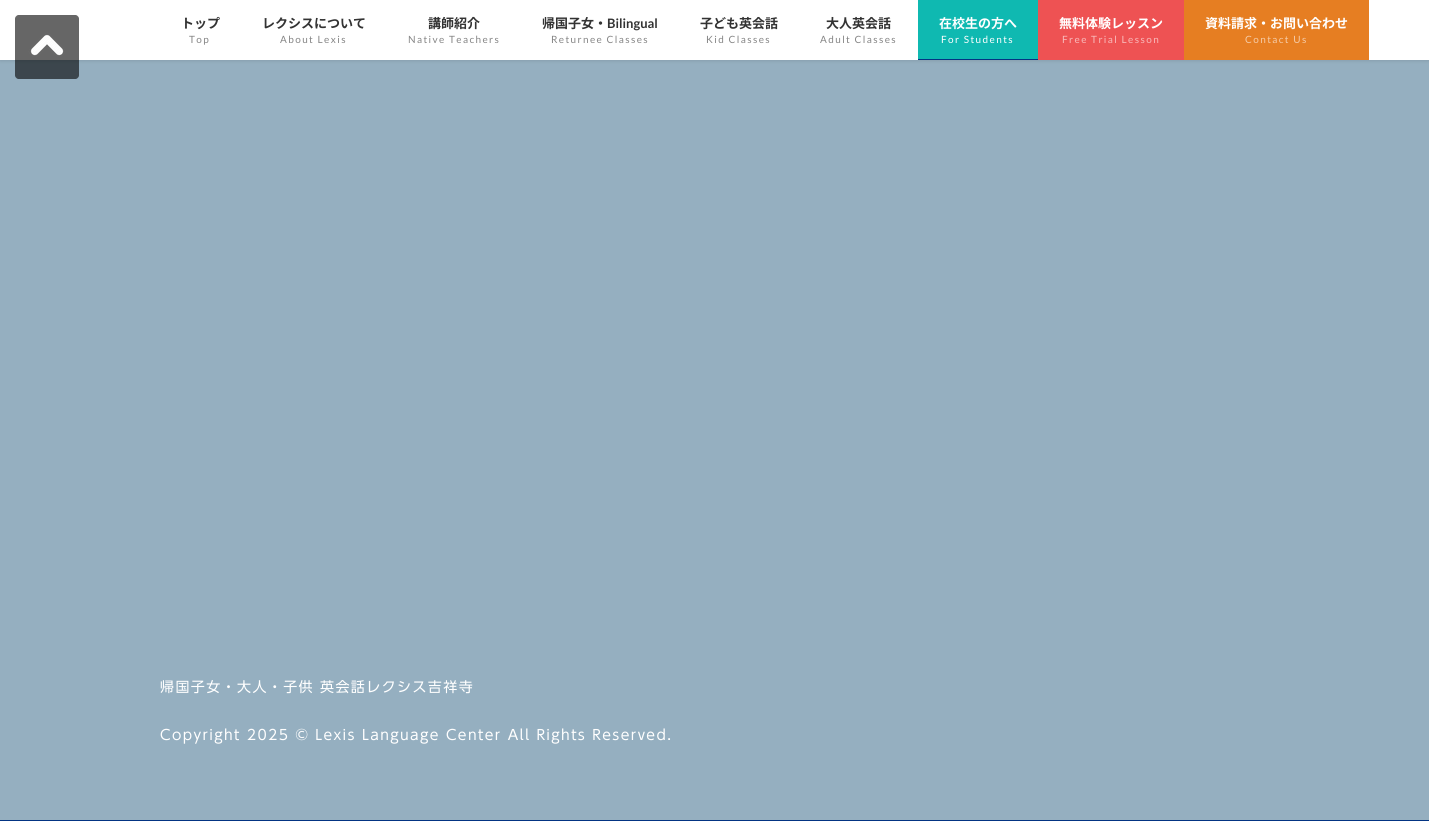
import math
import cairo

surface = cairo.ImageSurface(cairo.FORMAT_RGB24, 1429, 821)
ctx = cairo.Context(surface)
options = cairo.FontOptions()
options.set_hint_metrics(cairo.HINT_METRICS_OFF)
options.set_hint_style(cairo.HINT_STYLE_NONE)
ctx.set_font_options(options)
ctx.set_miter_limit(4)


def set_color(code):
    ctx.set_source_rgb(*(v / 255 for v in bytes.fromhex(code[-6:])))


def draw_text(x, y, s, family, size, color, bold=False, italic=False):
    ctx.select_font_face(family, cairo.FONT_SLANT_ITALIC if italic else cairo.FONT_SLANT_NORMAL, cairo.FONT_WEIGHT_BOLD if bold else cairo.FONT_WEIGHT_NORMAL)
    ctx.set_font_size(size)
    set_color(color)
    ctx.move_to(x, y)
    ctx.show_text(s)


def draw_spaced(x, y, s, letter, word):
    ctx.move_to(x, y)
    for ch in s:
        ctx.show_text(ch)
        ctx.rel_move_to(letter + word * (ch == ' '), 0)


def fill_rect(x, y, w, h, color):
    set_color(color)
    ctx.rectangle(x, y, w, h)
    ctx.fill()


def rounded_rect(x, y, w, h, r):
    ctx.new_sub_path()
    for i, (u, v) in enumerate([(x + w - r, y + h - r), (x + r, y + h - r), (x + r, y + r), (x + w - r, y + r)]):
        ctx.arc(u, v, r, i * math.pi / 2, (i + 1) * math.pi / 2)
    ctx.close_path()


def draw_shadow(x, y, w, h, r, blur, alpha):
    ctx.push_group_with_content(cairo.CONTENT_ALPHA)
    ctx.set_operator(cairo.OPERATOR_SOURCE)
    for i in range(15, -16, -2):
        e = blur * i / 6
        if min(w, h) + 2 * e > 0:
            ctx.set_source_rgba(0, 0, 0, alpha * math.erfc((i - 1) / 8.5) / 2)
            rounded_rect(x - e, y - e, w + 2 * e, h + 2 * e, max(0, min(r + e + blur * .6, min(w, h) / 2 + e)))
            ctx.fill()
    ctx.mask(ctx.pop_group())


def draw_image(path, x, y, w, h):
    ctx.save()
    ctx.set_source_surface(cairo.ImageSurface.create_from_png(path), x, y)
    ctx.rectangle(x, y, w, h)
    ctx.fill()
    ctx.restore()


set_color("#95afc0")
ctx.paint()
set_color("#000000")
draw_shadow(0, 1, 1429, 60, 0, 1.5, 0.1)
fill_rect(0, 0, 1429, 60, "#ffffff")
draw_image("assets/img1.png", 15, 15, 64, 64)
draw_text(181, 28, "トップ", "Noto Sans JP", 13, "#333333", bold=True)
ctx.select_font_face("Lato")
ctx.set_font_size(10)
set_color("#858585")
draw_spaced(189, 43, "Top", 1.4, 0)
draw_text(262, 28, "レクシスについて", "Noto Sans JP", 13, "#333333", bold=True)
ctx.select_font_face("Lato")
ctx.set_font_size(10)
set_color("#858585")
draw_spaced(280, 43, "About Lexis", 1.4, 0)
draw_text(428, 28, "講師紹介", "Noto Sans JP", 13, "#333333", bold=True)
ctx.select_font_face("Lato")
ctx.set_font_size(10)
set_color("#858585")
draw_spaced(408, 43, "Native Teachers", 1.4, 0)
draw_text(542, 28, "帰国子女・", "Noto Sans JP", 13, "#333333", bold=True)
draw_text(607, 28, "Bilingual", "Lato", 13, "#333333", bold=True)
ctx.select_font_face("Lato")
ctx.set_font_size(10)
set_color("#858585")
draw_spaced(551, 43, "Returnee Classes", 1.4, 0)
draw_text(700, 28, "子ども英会話", "Noto Sans JP", 13, "#333333", bold=True)
ctx.select_font_face("Lato")
ctx.set_font_size(10)
set_color("#858585")
draw_spaced(706, 43, "Kid Classes", 1.4, 0)
draw_text(826, 28, "大人英会話", "Noto Sans JP", 13, "#333333", bold=True)
ctx.select_font_face("Lato")
ctx.set_font_size(10)
set_color("#858585")
draw_spaced(820, 43, "Adult Classes", 1.4, 0)
fill_rect(918, 0, 120, 59, "#0fb9b1")
draw_text(939, 28, "在校生の方へ", "Noto Sans JP", 13, "#ffffff", bold=True)
ctx.select_font_face("Lato")
ctx.set_font_size(10)
draw_spaced(941, 43, "For Students", 1.4, 0)
fill_rect(918, 59, 120, 1, "#033483")
fill_rect(1038, 0, 146, 60, "#ee5253")
draw_text(1059, 28, "無料体験レッスン", "Noto Sans JP", 13, "#ffffff", bold=True)
ctx.select_font_face("Lato")
ctx.set_font_size(10)
set_color("#f8baba")
draw_spaced(1062, 43, "Free Trial Lesson", 1.4, 0)
fill_rect(1184, 0, 185, 60, "#e67e22")
draw_text(1205, 28, "資料請求・お問い合わせ", "Noto Sans JP", 13, "#ffffff", bold=True)
ctx.select_font_face("Lato")
ctx.set_font_size(10)
set_color("#f5cba7")
draw_spaced(1245, 43, "Contact Us", 1.4, 0)
ctx.select_font_face("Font")
ctx.set_font_size(14)
set_color("#ffffff")
draw_spaced(160, 692, "帰国子女・大人・子供 英会話レクシス吉祥寺", 1.4, 0)
draw_spaced(160, 740, "Copyright 2025 © Lexis Language Center All Rights Reserved.", 1.4, 0)
fill_rect(0, 820, 1429, 1, "#033483")
surface.write_to_png("output.png")
